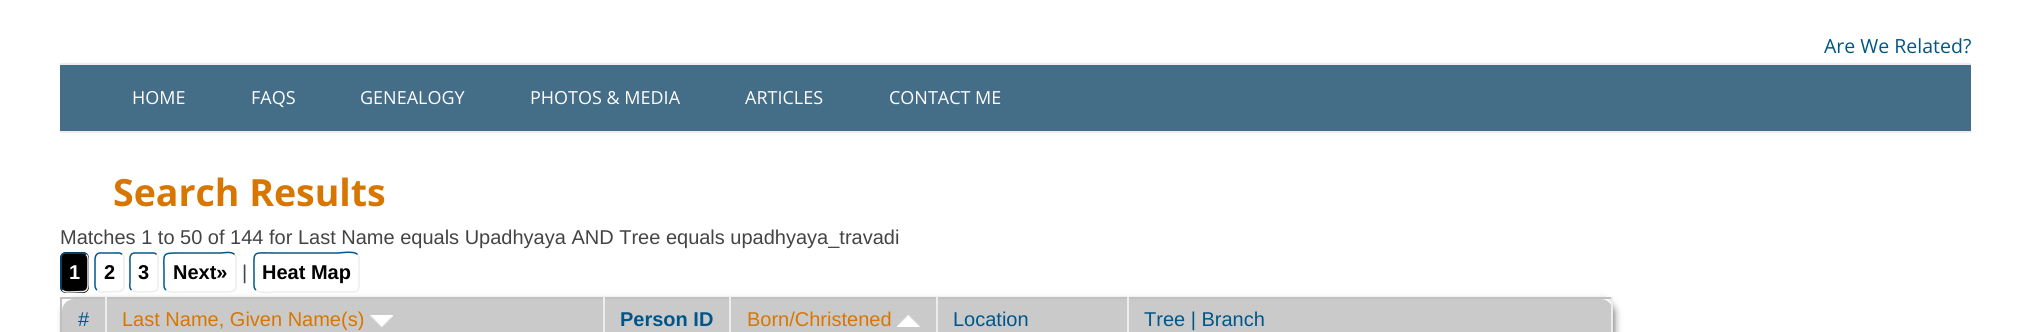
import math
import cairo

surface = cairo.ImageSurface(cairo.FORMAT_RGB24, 2030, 332)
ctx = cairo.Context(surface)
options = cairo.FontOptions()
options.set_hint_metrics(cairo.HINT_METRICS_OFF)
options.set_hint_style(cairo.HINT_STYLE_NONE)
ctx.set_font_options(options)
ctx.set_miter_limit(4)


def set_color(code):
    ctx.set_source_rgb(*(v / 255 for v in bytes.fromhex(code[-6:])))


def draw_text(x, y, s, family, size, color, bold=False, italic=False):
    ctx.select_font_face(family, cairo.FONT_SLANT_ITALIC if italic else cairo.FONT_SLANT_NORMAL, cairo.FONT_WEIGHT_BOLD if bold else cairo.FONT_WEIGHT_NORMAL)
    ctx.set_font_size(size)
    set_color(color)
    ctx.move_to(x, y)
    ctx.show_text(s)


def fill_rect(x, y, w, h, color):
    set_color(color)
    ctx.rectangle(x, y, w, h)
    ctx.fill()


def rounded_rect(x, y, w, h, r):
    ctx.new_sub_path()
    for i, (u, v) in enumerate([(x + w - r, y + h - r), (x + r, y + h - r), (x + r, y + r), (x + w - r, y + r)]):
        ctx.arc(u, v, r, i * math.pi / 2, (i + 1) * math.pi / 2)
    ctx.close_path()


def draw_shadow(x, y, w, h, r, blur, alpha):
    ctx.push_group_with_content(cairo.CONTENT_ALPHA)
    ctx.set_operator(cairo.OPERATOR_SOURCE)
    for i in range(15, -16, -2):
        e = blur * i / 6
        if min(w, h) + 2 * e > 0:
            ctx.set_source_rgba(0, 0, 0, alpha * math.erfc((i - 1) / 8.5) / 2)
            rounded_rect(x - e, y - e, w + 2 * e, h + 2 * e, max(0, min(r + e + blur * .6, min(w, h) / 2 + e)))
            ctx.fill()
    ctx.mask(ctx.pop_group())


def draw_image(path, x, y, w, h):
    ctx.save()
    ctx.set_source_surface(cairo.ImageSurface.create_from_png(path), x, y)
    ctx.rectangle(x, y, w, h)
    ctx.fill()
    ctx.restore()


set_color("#ffffff")
ctx.paint()
draw_text(1824, 53, "Are We Related?", "Open Sans", 19.5, "#005681")
fill_rect(60, 65, 1911, 66, "#446d87")
fill_rect(60, 63, 1911, 2, "#ededed")
fill_rect(60, 131, 1911, 2, "#ededed")
draw_text(132, 104, "HOME", "Open Sans", 18, "#ffffff")
draw_text(251, 104, "FAQS", "Open Sans", 18, "#ffffff")
draw_text(360, 104, "GENEALOGY", "Open Sans", 18, "#ffffff")
draw_text(530, 104, "PHOTOS & MEDIA", "Open Sans", 18, "#ffffff")
draw_text(745, 104, "ARTICLES", "Open Sans", 18, "#ffffff")
draw_text(889, 104, "CONTACT ME", "Open Sans", 18, "#ffffff")
draw_text(113, 206, "Search Results", "Open Sans", 37.5, "#d77600", bold=True)
draw_text(60, 244, "Matches 1 to 50 of 144 for Last Name equals Upadhyaya AND Tree equals upadhyaya_travadi", "Liberation Sans", 20, "#444444")
set_color("#666666")
draw_shadow(65, 302, 1549, 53, 11, 4, 1)
set_color("#000000")
rounded_rect(60, 252, 29, 41, 6)
ctx.fill()
ctx.new_path()
ctx.move_to(86, 254.5)
ctx.curve_to(88.5, 256.5, 88, 260, 88, 263)
ctx.line_to(88, 282)
ctx.curve_to(88, 285.5, 88.5, 290.5, 83.5, 291.5)
ctx.line_to(69, 292)
ctx.curve_to(66.5, 292, 64, 292, 62.5, 290)
set_color("#ededed")
ctx.set_line_width(1.5)
ctx.stroke()
ctx.new_path()
ctx.move_to(62.5, 290)
ctx.curve_to(60, 288, 61, 284.5, 61, 282)
ctx.line_to(61, 263)
ctx.curve_to(61, 259, 60, 254, 65, 253)
ctx.line_to(80, 253)
ctx.curve_to(82, 253, 84.5, 252.5, 86, 254.5)
set_color("#005689")
ctx.stroke()
draw_text(69, 279, "1", "Liberation Sans", 20, "#ffffff", bold=True)
ctx.new_path()
ctx.move_to(122, 254.5)
ctx.curve_to(124.5, 256.5, 124, 260, 124, 263)
ctx.line_to(124, 282)
ctx.curve_to(124, 285.5, 124.5, 290.5, 119.5, 291.5)
ctx.line_to(103.5, 292)
ctx.curve_to(101, 292, 98.5, 292, 97, 290)
set_color("#ededed")
ctx.stroke()
ctx.new_path()
ctx.move_to(97, 290)
ctx.curve_to(94.5, 288, 95, 284.5, 95, 282)
ctx.line_to(95, 263)
ctx.curve_to(95, 259, 94.5, 254, 99.5, 253)
ctx.line_to(115.5, 253)
ctx.curve_to(118, 253, 120.5, 252.5, 122, 254.5)
set_color("#005689")
ctx.stroke()
draw_text(104, 279, "2", "Liberation Sans", 20, "#000000", bold=True)
ctx.new_path()
ctx.move_to(156.5, 254.5)
ctx.curve_to(159, 256.5, 158, 260, 158, 263)
ctx.line_to(158, 282)
ctx.curve_to(158, 285.5, 159, 290.5, 154, 291.5)
ctx.line_to(138, 292)
ctx.curve_to(135.5, 292, 133, 292, 131.5, 290)
set_color("#ededed")
ctx.stroke()
ctx.new_path()
ctx.move_to(131.5, 290)
ctx.curve_to(129, 288, 130, 284.5, 130, 282)
ctx.line_to(130, 263)
ctx.curve_to(130, 259, 129, 254, 134, 253)
ctx.line_to(150, 253)
ctx.curve_to(152.5, 253, 155, 252.5, 156.5, 254.5)
set_color("#005689")
ctx.stroke()
draw_text(138, 279, "3", "Liberation Sans", 20, "#000000", bold=True)
ctx.new_path()
ctx.move_to(234.5, 254.5)
ctx.curve_to(237, 256.5, 236, 260, 236, 263)
ctx.line_to(236, 272)
ctx.curve_to(236, 291.5, 239.5, 292, 221, 292)
ctx.line_to(180, 292)
ctx.curve_to(177.5, 292, 169, 293.5, 166, 290)
set_color("#ededed")
ctx.stroke()
ctx.new_path()
ctx.move_to(166, 290)
ctx.curve_to(163.5, 288, 164, 284.5, 164, 282)
ctx.line_to(164, 272)
ctx.curve_to(164, 253, 161, 253, 180, 253)
ctx.line_to(221, 253)
ctx.curve_to(223, 253, 231.5, 251, 234.5, 254.5)
set_color("#005689")
ctx.stroke()
draw_text(173, 279, "Next»", "Liberation Sans", 20, "#000000", bold=True)
draw_text(242, 279, "|", "Liberation Sans", 20, "#444444")
ctx.new_path()
ctx.move_to(357.5, 254.5)
ctx.curve_to(360, 256.5, 359, 260, 359, 263)
ctx.line_to(359, 272)
ctx.curve_to(359, 294.5, 362, 292, 338, 292)
ctx.line_to(275, 292)
ctx.curve_to(273.5, 292, 259.5, 294, 256, 290)
set_color("#ededed")
ctx.stroke()
ctx.new_path()
ctx.move_to(256, 290)
ctx.curve_to(253.5, 288, 254, 284.5, 254, 282)
ctx.line_to(254, 272)
ctx.curve_to(254, 250, 251.5, 253, 275, 253)
ctx.line_to(338, 253)
ctx.curve_to(340, 253, 354, 250.5, 357.5, 254.5)
set_color("#005689")
ctx.stroke()
draw_text(262, 279, "Heat Map", "Liberation Sans", 20, "#000000", bold=True)
set_color("#ffffff")
rounded_rect(60, 297, 1553, 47, 12)
ctx.fill()
fill_rect(60, 297, 1553, 2, "#c0c0c0")
fill_rect(60, 297, 2, 35, "#c0c0c0")
set_color("#cacaca")
ctx.new_path()
ctx.move_to(74, 299)
ctx.line_to(105, 299)
ctx.line_to(105, 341)
ctx.line_to(62, 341)
ctx.line_to(62, 311)
ctx.curve_to(62, 304.5, 67.5, 299, 74, 299)
ctx.close_path()
ctx.fill()
fill_rect(105, 297, 2, 35, "#ededed")
draw_text(78, 326, "#", "Liberation Sans", 20, "#005689")
fill_rect(107, 299, 496, 33, "#cacaca")
fill_rect(603, 297, 2, 35, "#ededed")
draw_text(122, 326, "Last Name, Given Name(s)", "Liberation Sans", 20, "#d77600")
draw_image("assets/img1.png", 370, 315, 23, 12)
fill_rect(605, 299, 124, 33, "#cacaca")
fill_rect(729, 297, 2, 35, "#ededed")
draw_text(620, 326, "Person ID", "Liberation Sans", 20, "#005689", bold=True)
fill_rect(731, 299, 205, 33, "#cacaca")
fill_rect(936, 297, 2, 35, "#ededed")
draw_text(747, 326, "Born/Christened", "Liberation Sans", 20, "#d77600")
draw_image("assets/img2.png", 897, 315, 23, 12)
fill_rect(938, 299, 189, 33, "#cacaca")
ctx.new_path()
ctx.move_to(1127, 299)
ctx.line_to(1601, 299)
ctx.curve_to(1607.5, 299, 1613, 304.5, 1613, 311)
ctx.line_to(1613, 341)
ctx.line_to(1127, 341)
ctx.close_path()
ctx.fill()
fill_rect(1127, 297, 2, 35, "#ededed")
draw_text(953, 326, "Location", "Liberation Sans", 20, "#005689")
fill_rect(1611, 297, 2, 35, "#ededed")
draw_text(1144, 326, "Tree | Branch", "Liberation Sans", 20, "#005689")
surface.write_to_png("output.png")
